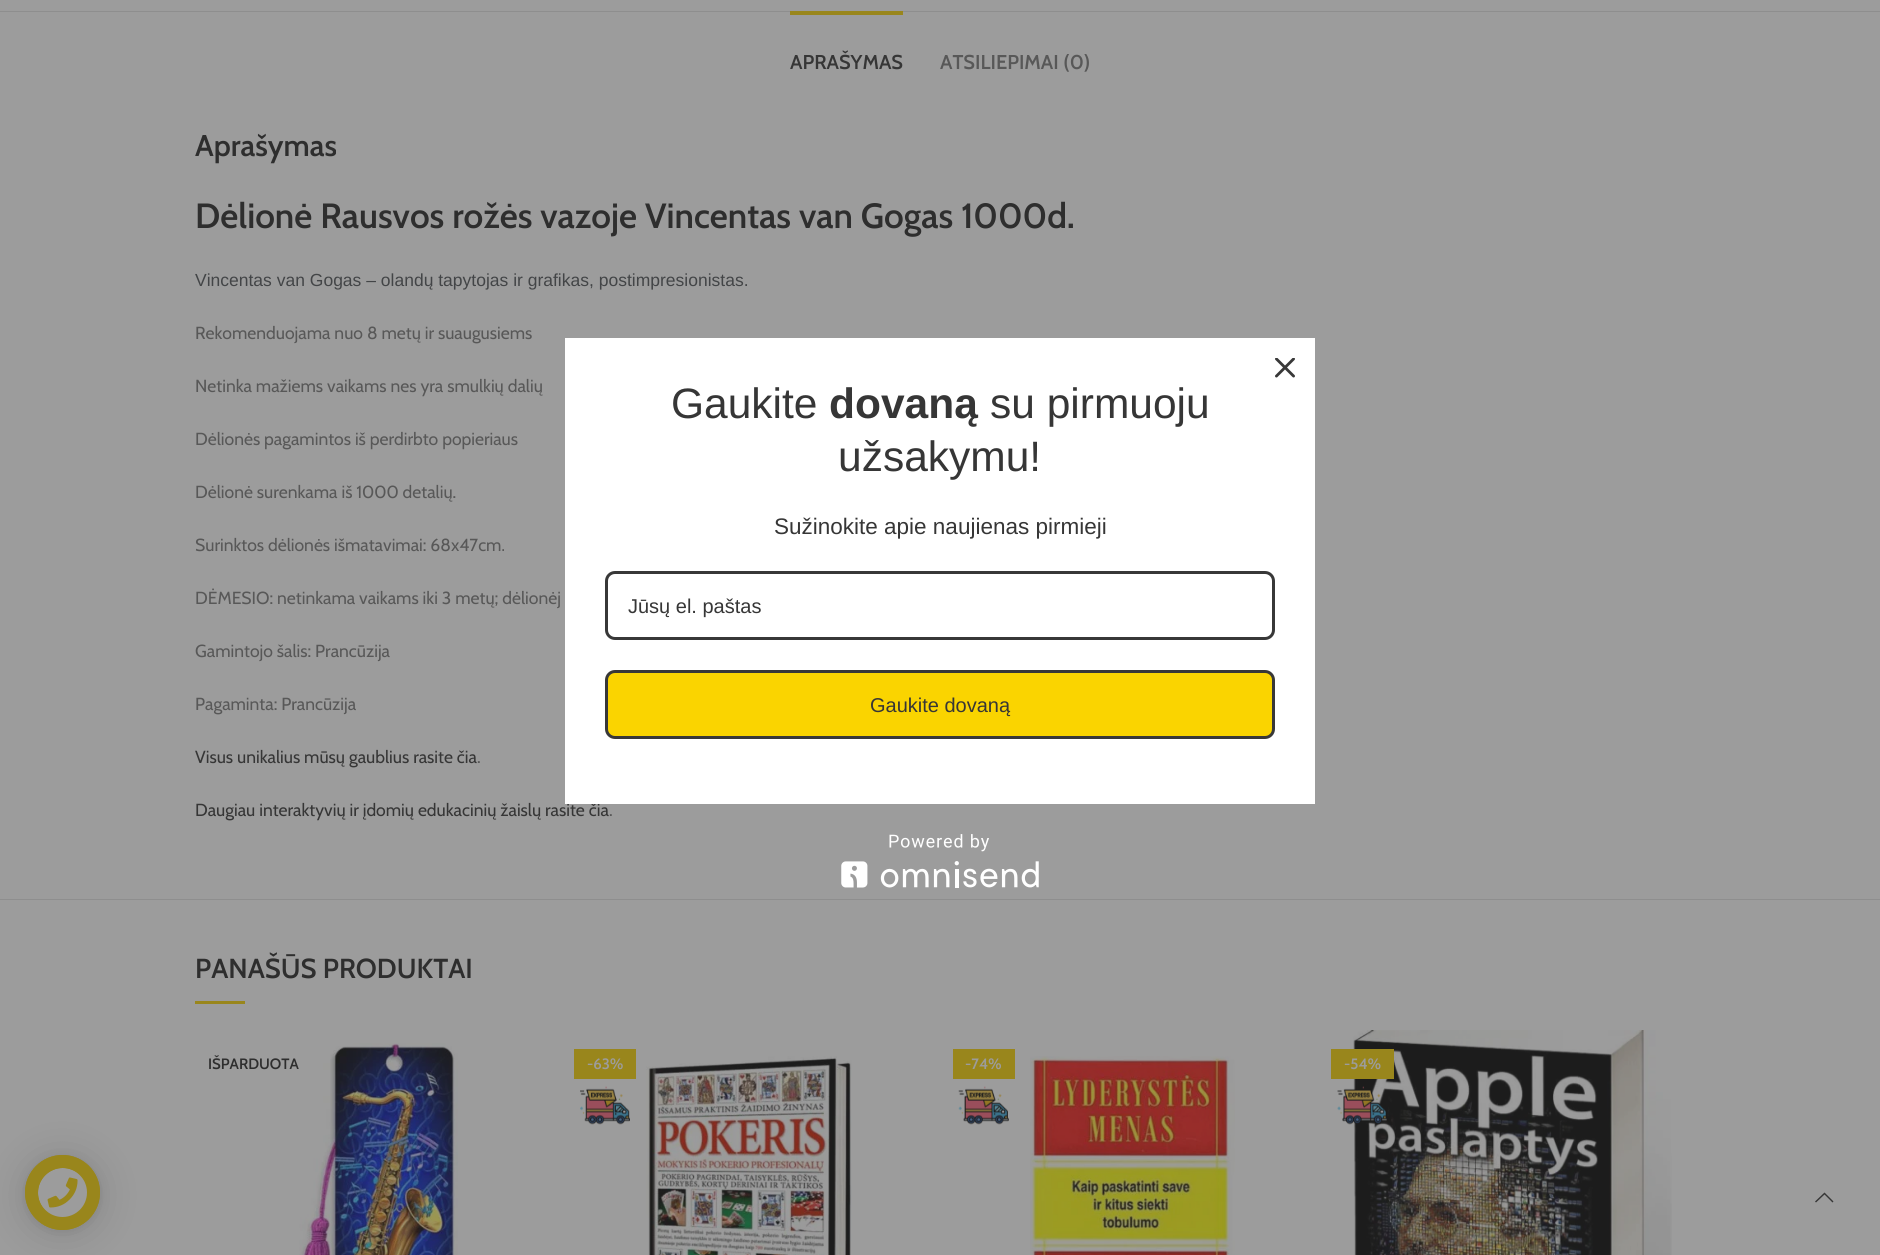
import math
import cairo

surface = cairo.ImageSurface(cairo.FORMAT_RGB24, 1880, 1255)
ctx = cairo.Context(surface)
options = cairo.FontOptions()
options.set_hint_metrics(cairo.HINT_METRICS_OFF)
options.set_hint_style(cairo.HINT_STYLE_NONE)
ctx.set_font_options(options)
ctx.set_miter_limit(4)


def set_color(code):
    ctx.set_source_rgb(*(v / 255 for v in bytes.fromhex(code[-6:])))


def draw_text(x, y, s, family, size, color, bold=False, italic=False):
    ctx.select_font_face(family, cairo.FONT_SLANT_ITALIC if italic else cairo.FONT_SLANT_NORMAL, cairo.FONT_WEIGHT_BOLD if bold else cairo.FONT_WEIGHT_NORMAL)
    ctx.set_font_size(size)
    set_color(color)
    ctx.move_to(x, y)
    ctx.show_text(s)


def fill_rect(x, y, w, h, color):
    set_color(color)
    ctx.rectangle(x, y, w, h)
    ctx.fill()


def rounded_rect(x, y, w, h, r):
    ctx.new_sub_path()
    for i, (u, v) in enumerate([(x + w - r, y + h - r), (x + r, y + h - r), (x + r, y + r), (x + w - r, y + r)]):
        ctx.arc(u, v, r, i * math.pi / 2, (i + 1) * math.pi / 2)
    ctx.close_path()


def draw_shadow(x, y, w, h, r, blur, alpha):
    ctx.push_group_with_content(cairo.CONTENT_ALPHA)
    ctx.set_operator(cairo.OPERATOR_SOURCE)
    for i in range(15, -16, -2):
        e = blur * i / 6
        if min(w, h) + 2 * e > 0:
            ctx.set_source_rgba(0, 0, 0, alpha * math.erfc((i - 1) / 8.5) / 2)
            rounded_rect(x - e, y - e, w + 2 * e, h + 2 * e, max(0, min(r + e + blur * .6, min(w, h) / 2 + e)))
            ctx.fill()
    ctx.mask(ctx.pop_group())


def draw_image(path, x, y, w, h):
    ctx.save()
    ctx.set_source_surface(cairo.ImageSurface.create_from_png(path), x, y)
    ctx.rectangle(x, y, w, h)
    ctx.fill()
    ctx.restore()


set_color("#9c9c9c")
ctx.paint()
fill_rect(0, 11, 1880, 1, "#8e8e8e")
fill_rect(0, 899, 1880, 1, "#8e8e8e")
fill_rect(790, 11, 113, 4, "#99861c")
draw_text(790, 69, "APRAŠYMAS", "Cabin SemiBold", 20, "#363636")
draw_text(940, 69, "ATSILIEPIMAI (0)", "Cabin SemiBold", 20, "#585858")
draw_text(195, 156, "Aprašymas", "Cabin SemiBold", 30, "#2e2e2e")
draw_text(195, 228, "Dėlionė Rausvos rožės vazoje Vincentas van Gogas 1000d.", "Cabin SemiBold", 35, "#2e2e2e")
draw_text(195, 286, "Vincentas van Gogas – olandų tapytojas ir grafikas, postimpresionistas.", "Liberation Sans", 17.5, "#434547")
draw_text(195, 339, "Rekomenduojama nuo 8 metų ir suaugusiems", "Cabin", 17.5, "#585858")
draw_text(195, 392, "Netinka mažiems vaikams nes yra smulkių dalių", "Cabin", 17.5, "#585858")
draw_text(195, 445, "Dėlionės pagamintos iš perdirbto popieriaus", "Cabin", 17.5, "#585858")
draw_text(195, 498, "Dėlionė surenkama iš 1000 detalių.", "Cabin", 17.5, "#585858")
draw_text(195, 551, "Surinktos dėlionės išmatavimai: 68x47cm.", "Cabin", 17.5, "#585858")
draw_text(195, 604, "DĖMESIO: netinkama vaikams iki 3 metų; dėlionėj", "Cabin", 17.5, "#585858")
draw_text(195, 657, "Gamintojo šalis: Prancūzija", "Cabin", 17.5, "#585858")
draw_text(195, 710, "Pagaminta: Prancūzija", "Cabin", 17.5, "#585858")
draw_text(195, 763, "Visus unikalius mūsų gaublius rasite čia", "Cabin", 17.5, "#363636")
draw_text(477, 763, ".", "Cabin", 17.5, "#585858")
draw_text(195, 816, "Daugiau interaktyvių ir įdomių edukacinių žaislų rasite čia", "Cabin", 17.5, "#363636")
draw_text(609, 816, ".", "Cabin", 17.5, "#585858")
draw_text(195, 978, "PANAŠŪS PRODUKTAI", "Cabin SemiBold", 27.5, "#2e2e2e")
fill_rect(195, 1001, 50, 3, "#99861c")
draw_text(208, 1069, "IŠPARDUOTA", "Cabin SemiBold", 15, "#2e2e2e")
draw_image("assets/img1.png", 299, 1043, 159, 212)
fill_rect(574, 1049, 62, 30, "#99861c")
draw_text(587, 1069, "-63%", "Cabin SemiBold", 15, "#9c9c9c")
draw_image("assets/img2.png", 646, 1056, 206, 199)
draw_image("assets/img3.png", 580, 1086, 50, 39)
fill_rect(953, 1049, 62, 30, "#99861c")
draw_text(965, 1069, "-74%", "Cabin SemiBold", 15, "#9c9c9c")
draw_image("assets/img4.png", 1030, 1056, 205, 199)
draw_image("assets/img5.png", 958, 1086, 51, 39)
draw_image("assets/img6.png", 1353, 1030, 319, 225)
fill_rect(1331, 1049, 63, 30, "#99861c")
draw_text(1344, 1069, "-54%", "Cabin SemiBold", 15, "#9c9c9c")
draw_image("assets/img7.png", 1337, 1086, 50, 39)
fill_rect(565, 338, 750, 466, "#ffffff")
draw_image("assets/img8.png", 1275, 358, 20, 20)
draw_text(671, 418, "Gaukite", "Liberation Sans", 42.5, "#363636")
draw_text(829, 418, "dovaną", "Liberation Sans", 42.5, "#363636", bold=True)
draw_text(990, 418, "su pirmuoju", "Liberation Sans", 42.5, "#363636")
draw_text(838, 471, "užsakymu!", "Liberation Sans", 42.5, "#363636")
draw_text(774, 534, "Sužinokite apie naujienas pirmieji", "Liberation Sans", 22.5, "#363636")
rounded_rect(606.5, 572.5, 667, 66, 8.5)
set_color("#383838")
ctx.set_line_width(3)
ctx.stroke()
draw_text(628, 613, "Jūsų el. paštas", "Liberation Sans", 20, "#363636")
set_color("#fad400")
rounded_rect(606.5, 671.5, 667, 66, 8.5)
ctx.fill_preserve()
set_color("#383838")
ctx.stroke()
draw_text(870, 712, "Gaukite dovaną", "Liberation Sans", 20, "#363636")
draw_image("assets/img9.png", 841, 834, 198, 54)
set_color("#1c1c1c")
draw_shadow(25, 1158, 75, 75, 37.5, 20, 0.16)
draw_shadow(25, 1156, 75, 75, 37.5, 4, 0.1)
set_color("#99861c")
ctx.arc(62.5, 1192.5, 37.5, 0, 2 * math.pi)
ctx.fill()
set_color("#9c9c9c")
ctx.arc(63, 1193, 25, 0, 2 * math.pi)
ctx.fill()
draw_image("assets/img10.png", 47, 1177, 31, 31)
ctx.arc(62.5, 1192.5, 31, 0, 2 * math.pi)
set_color("#99861c")
ctx.set_line_width(13)
ctx.stroke()
set_color("#363636")
ctx.new_path()
ctx.move_to(1832.5, 1202.5)
ctx.line_to(1833.5, 1201.5)
ctx.line_to(1824.5, 1192.5)
ctx.line_to(1815, 1201.5)
ctx.line_to(1816, 1202.5)
ctx.line_to(1824.5, 1194.5)
ctx.close_path()
ctx.fill()
surface.write_to_png("output.png")
